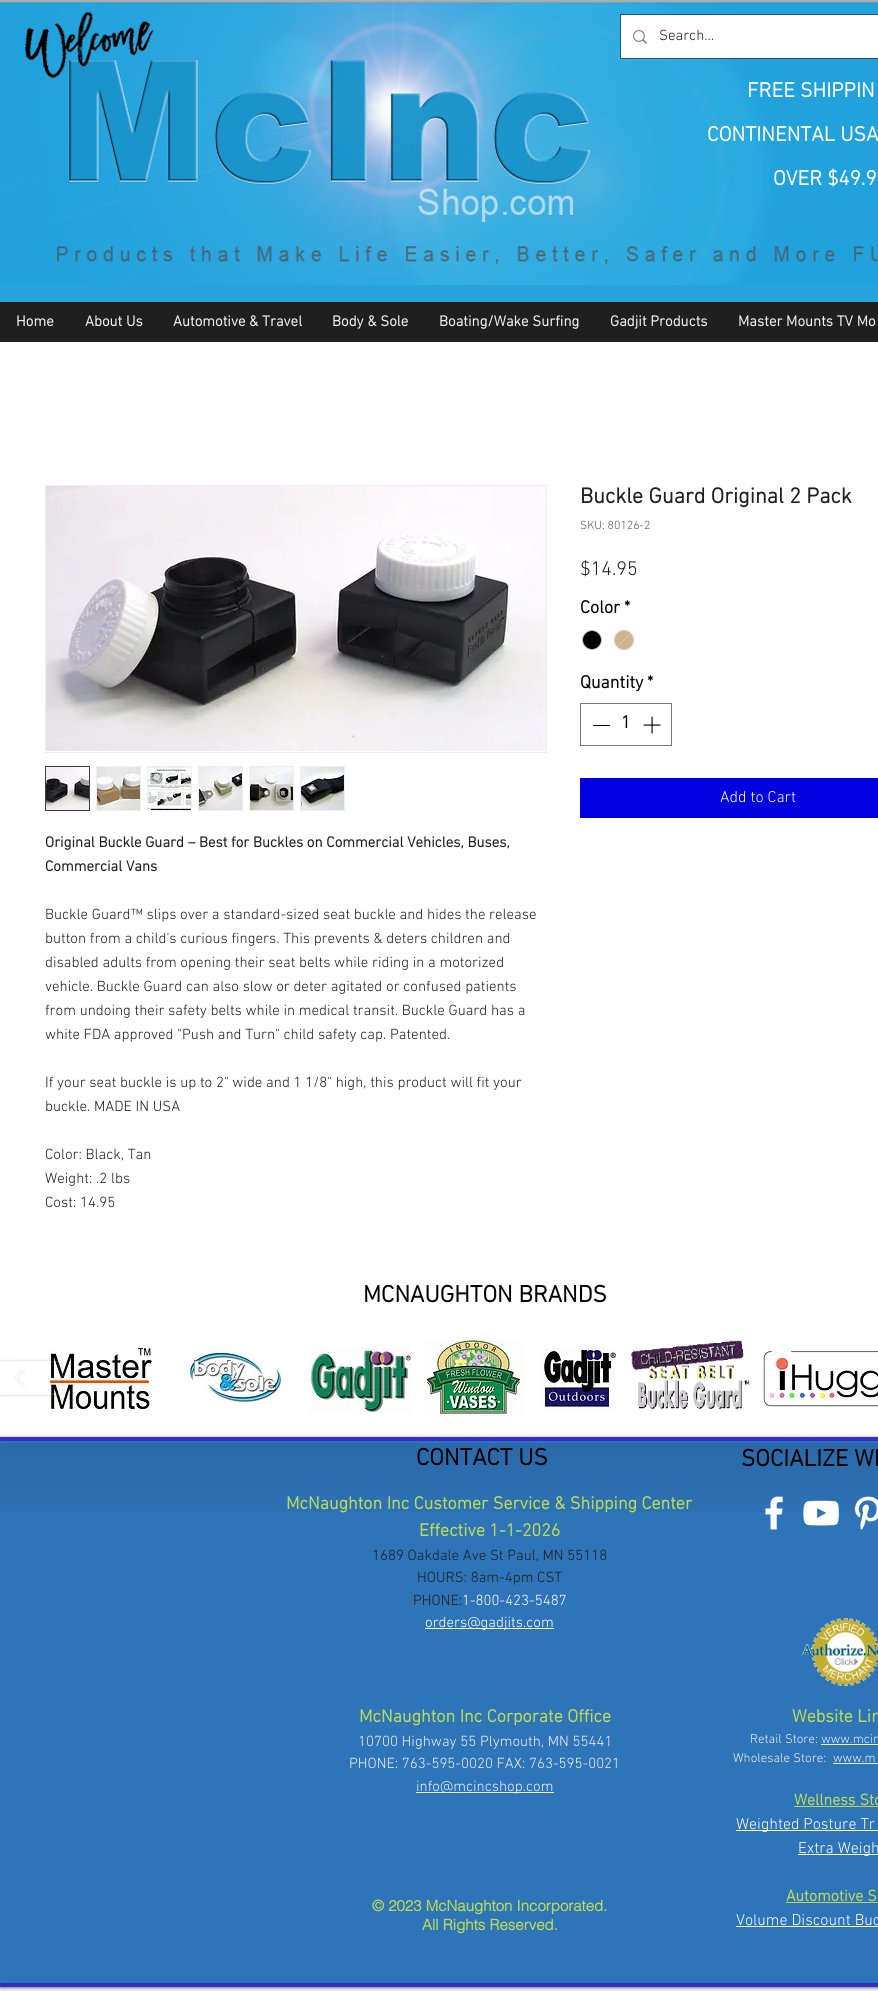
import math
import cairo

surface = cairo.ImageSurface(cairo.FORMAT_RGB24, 878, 1991)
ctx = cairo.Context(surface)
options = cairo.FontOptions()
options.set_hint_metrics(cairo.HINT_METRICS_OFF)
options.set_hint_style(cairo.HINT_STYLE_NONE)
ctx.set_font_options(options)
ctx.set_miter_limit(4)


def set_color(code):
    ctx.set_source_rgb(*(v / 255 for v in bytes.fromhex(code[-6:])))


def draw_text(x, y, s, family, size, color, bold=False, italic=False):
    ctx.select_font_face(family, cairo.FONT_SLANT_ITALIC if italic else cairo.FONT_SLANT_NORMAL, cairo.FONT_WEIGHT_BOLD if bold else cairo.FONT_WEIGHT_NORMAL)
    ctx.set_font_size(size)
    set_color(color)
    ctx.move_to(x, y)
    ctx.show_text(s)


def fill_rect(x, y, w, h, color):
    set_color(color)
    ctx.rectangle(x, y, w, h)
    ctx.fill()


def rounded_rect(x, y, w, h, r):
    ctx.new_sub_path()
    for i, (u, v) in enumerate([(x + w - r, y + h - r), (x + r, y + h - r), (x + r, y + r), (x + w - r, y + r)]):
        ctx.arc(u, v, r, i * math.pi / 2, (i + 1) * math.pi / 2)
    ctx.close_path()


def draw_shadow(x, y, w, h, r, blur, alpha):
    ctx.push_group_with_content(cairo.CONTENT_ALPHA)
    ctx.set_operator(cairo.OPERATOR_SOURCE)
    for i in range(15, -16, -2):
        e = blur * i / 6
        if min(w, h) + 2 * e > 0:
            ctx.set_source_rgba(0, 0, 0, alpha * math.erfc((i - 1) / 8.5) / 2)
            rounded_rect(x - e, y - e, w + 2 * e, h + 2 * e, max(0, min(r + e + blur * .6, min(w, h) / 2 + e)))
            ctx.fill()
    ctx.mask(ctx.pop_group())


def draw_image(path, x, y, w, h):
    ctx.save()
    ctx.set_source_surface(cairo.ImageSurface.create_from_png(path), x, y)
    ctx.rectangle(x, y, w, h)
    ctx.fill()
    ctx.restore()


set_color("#ffffff")
ctx.paint()
draw_image("assets/img1.png", 0, 0, 878, 285)
ctx.rectangle(620.5, 14.5, 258, 44)
ctx.set_source_rgba(0.122, 0.122, 0.122, 0.6)
ctx.set_line_width(1)
ctx.stroke()
fill_rect(621, 15, 257, 43, "#ffffff")
draw_image("assets/img2.png", 633, 30, 14, 14)
draw_text(659, 40, "Search...", "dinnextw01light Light", 15, "#1f1f1f")
draw_text(747, 97, "FREE SHIPPIN", "dinnextw01light", 21, "#ffffff", bold=True)
draw_text(707, 141, "CONTINENTAL USA", "dinnextw01light", 21, "#ffffff", bold=True)
draw_text(773, 185, "OVER $49.9", "dinnextw01light", 21, "#ffffff", bold=True)
fill_rect(0, 302, 878, 40, "#1f1f1f")
draw_text(16, 326, "Home", "dinnextw01light", 15, "#eeeeee", bold=True)
draw_text(85, 326, "About Us", "dinnextw01light", 15, "#eeeeee", bold=True)
draw_text(173, 326, "Automotive & Travel", "dinnextw01light", 15, "#eeeeee", bold=True)
draw_text(332, 326, "Body & Sole", "dinnextw01light", 15, "#eeeeee", bold=True)
draw_text(439, 326, "Boating/Wake Surfing", "dinnextw01light", 15, "#eeeeee", bold=True)
draw_text(610, 326, "Gadjit Products", "dinnextw01light", 15, "#eeeeee", bold=True)
draw_text(738, 326, "Master Mounts TV Mo", "dinnextw01light", 15, "#eeeeee", bold=True)
fill_rect(0, 285, 878, 17, "#26a2dc")
draw_text(580, 503, "Buckle Guard Original 2 Pack", "dinnextw01light", 22, "#1f1f1f", bold=True)
draw_text(580, 529, "SKU: 80126-2", "dinnextw01light Light", 12, "#5a5a5a")
draw_text(580, 575, "$14.95", "dinnextw01light Light", 20, "#1f1f1f")
draw_text(580, 613, "Color", "dinnextw01light", 18, "#000000", bold=True)
draw_text(624, 613, "*", "dinnextw01light", 18, "#000000", bold=True)
ctx.new_path()
ctx.arc(592, 640, 9.5, 0, 2 * math.pi)
ctx.fill_preserve()
set_color("#c9c9c9")
ctx.stroke()
set_color("#d2b48c")
ctx.arc(624, 640, 9.5, 0, 2 * math.pi)
ctx.fill_preserve()
set_color("#c9c9c9")
ctx.stroke()
ctx.new_path()
ctx.move_to(631, 634)
ctx.line_to(618, 647)
ctx.line_to(617.5, 646)
ctx.line_to(630, 633.5)
ctx.close_path()
ctx.fill()
draw_text(580, 688, "Quantity", "dinnextw01light", 18, "#000000", bold=True)
draw_text(647, 688, "*", "dinnextw01light", 18, "#000000", bold=True)
ctx.rectangle(580.5, 703.5, 91, 42)
set_color("#797979")
ctx.stroke()
fill_rect(593, 725, 17, 1, "#000000")
draw_text(621, 728, "1", "dinnextw01light", 18, "#000000", bold=True)
draw_image("assets/img3.png", 643, 716, 18, 18)
fill_rect(580, 778, 298, 40, "#0000df")
draw_text(720, 802, "Add to Cart", "dinnextw01light Light", 16, "#ffffff")
ctx.rectangle(45.5, 485.5, 501, 267)
set_color("#eeeeee")
ctx.stroke()
draw_image("assets/img4.png", 46, 486, 500, 265)
ctx.rectangle(45.5, 766.5, 44, 44)
set_color("#3e3e3e")
ctx.stroke()
draw_image("assets/img5.png", 46, 767, 43, 43)
fill_rect(96, 766, 45, 45, "#eeeeee")
draw_image("assets/img6.png", 97, 767, 43, 43)
fill_rect(147, 766, 45, 45, "#eeeeee")
draw_image("assets/img7.png", 148, 767, 43, 43)
fill_rect(198, 766, 45, 45, "#eeeeee")
draw_image("assets/img8.png", 199, 767, 43, 43)
fill_rect(249, 766, 45, 45, "#eeeeee")
draw_image("assets/img9.png", 250, 767, 43, 43)
fill_rect(300, 766, 45, 45, "#eeeeee")
draw_image("assets/img10.png", 301, 767, 43, 43)
draw_text(45, 847, "Original Buckle Guard – Best for Buckles on Commercial Vehicles, Buses,", "dinnextw01light", 15, "#1f1f1f", bold=True)
draw_text(45, 871, "Commercial Vans", "dinnextw01light", 15, "#1f1f1f", bold=True)
draw_text(45, 919, "Buckle Guard™ slips over a standard-sized seat buckle and hides the release", "dinnextw01light Light", 15, "#1f1f1f")
draw_text(45, 943, "button from a child's curious fingers. This prevents & deters children and", "dinnextw01light Light", 15, "#1f1f1f")
draw_text(45, 967, "disabled adults from opening their seat belts while riding in a motorized", "dinnextw01light Light", 15, "#1f1f1f")
draw_text(45, 991, "vehicle. Buckle Guard can also slow or deter agitated or confused patients", "dinnextw01light Light", 15, "#1f1f1f")
draw_text(45, 1015, "from undoing their safety belts while in medical transit. Buckle Guard has a", "dinnextw01light Light", 15, "#1f1f1f")
draw_text(45, 1039, "white FDA approved \"Push and Turn\" child safety cap. Patented.", "dinnextw01light Light", 15, "#1f1f1f")
draw_text(45, 1087, "If your seat buckle is up to 2\" wide and 1 1/8\" high, this product will fit your", "dinnextw01light Light", 15, "#1f1f1f")
draw_text(45, 1111, "buckle. MADE IN USA", "dinnextw01light Light", 15, "#1f1f1f")
draw_text(45, 1159, "Color: Black, Tan", "dinnextw01light Light", 15, "#1f1f1f")
draw_text(45, 1183, "Weight: .2 lbs", "dinnextw01light Light", 15, "#1f1f1f")
draw_text(45, 1207, "Cost: 14.95", "dinnextw01light Light", 15, "#1f1f1f")
draw_text(363, 1302, "MCNAUGHTON BRANDS", "dinnextw01light", 24, "#000000", bold=True)
draw_image("assets/img12.png", 47, 1348, 109, 64)
draw_image("assets/img11.png", 0, 1359, 65, 38)
draw_image("assets/img13.png", 189, 1348, 97, 56)
draw_image("assets/img14.png", 308, 1348, 104, 65)
draw_image("assets/img15.png", 425, 1340, 101, 77)
draw_image("assets/img16.png", 541, 1348, 75, 64)
draw_image("assets/img17.png", 631, 1340, 119, 71)
draw_image("assets/img18.png", 760, 1348, 118, 60)
set_color("#000000")
draw_shadow(-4, 1438, 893, 550, 5, 2, 0.6)
fill_rect(0, 1437, 878, 550, "#2e74b9")
draw_image("assets/img19.png", 0, 1443, 878, 69)
rounded_rect(-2, 1439, 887, 546, 3)
set_color("#352ccb")
ctx.set_line_width(4)
ctx.stroke()
draw_text(416, 1465, "CONTACT US", "dinnextw01light", 24, "#000000", bold=True)
draw_text(741, 1466, "SOCIALIZE WI", "dinnextw01light", 24, "#000000", bold=True)
draw_text(286, 1509, "McNaughton Inc Customer Service & Shipping Center", "dinnextw01light", 18, "#bada55", bold=True)
draw_text(419, 1536, "Effective 1-1-2026", "dinnextw01light", 18, "#bada55", bold=True)
draw_text(372, 1560, "1689 Oakdale Ave St Paul, MN 55118", "dinnextw01light Light", 15, "#1f1f1f")
draw_text(417, 1582, "HOURS: 8am-4pm CST", "dinnextw01light Light", 15, "#1f1f1f")
draw_text(413, 1605, "PHONE:", "dinnextw01light Light", 15, "#1f1f1f")
draw_text(462, 1605, "1-800-423-5487", "dinnextw01light Light", 15, "#ffffff")
fill_rect(425, 1628, 129, 1, "#ffffff")
draw_text(425, 1627, "orders@gadjits.com", "dinnextw01light Light", 15, "#ffffff")
draw_image("assets/img20.png", 765, 1496, 18, 34)
draw_image("assets/img21.png", 803, 1500, 36, 26)
draw_image("assets/img22.png", 854, 1496, 24, 34)
draw_image("assets/img23.png", 801, 1618, 77, 68)
draw_text(359, 1722, "McNaughton Inc Corporate Office", "dinnextw01light", 18, "#bada55", bold=True)
draw_text(358, 1746, "10700 Highway 55 Plymouth, MN 55441", "dinnextw01light Light", 15, "#eeeeee")
draw_text(349, 1768, "PHONE: 763-595-0020 FAX: 763-595-0021", "dinnextw01light Light", 15, "#eeeeee")
fill_rect(416, 1792, 138, 1, "#eeeeee")
draw_text(416, 1791, "info@mcincshop.com", "dinnextw01light Light", 15, "#eeeeee")
draw_text(792, 1722, "Website Lin", "dinnextw01light", 18, "#bada55", bold=True)
draw_text(750, 1743, "Retail Store: www.mcin", "dinnextw01light Light", 13, "#eeeeee")
fill_rect(821, 1744, 57, 1, "#eeeeee")
draw_text(733, 1762, "Wholesale Store:", "dinnextw01light Light", 13, "#eeeeee")
draw_text(833, 1762, "www.m", "dinnextw01light Light", 13, "#eeeeee")
fill_rect(833, 1763, 45, 1, "#eeeeee")
draw_text(794, 1805, "Wellness Sto", "dinnextw01light", 16, "#bada55", bold=True)
fill_rect(794, 1806, 84, 1, "#bada55")
fill_rect(736, 1830, 142, 1, "#fafafa")
draw_text(736, 1829, "Weighted Posture Tr", "dinnextw01light Light", 16, "#ffffff")
fill_rect(798, 1854, 80, 1, "#fafafa")
draw_text(798, 1853, "Extra Weigh", "dinnextw01light Light", 16, "#ffffff")
draw_text(786, 1901, "Automotive S", "dinnextw01light", 16, "#bada55", bold=True)
fill_rect(786, 1902, 92, 1, "#bada55")
draw_text(736, 1925, "Volume Discount Buc", "dinnextw01light Light", 16, "#ffffff")
fill_rect(736, 1926, 142, 1, "#fafafa")
draw_text(372, 1911, "© 2023 McNaughton Incorporated.", "helvetica", 15, "#bada55", bold=True)
draw_text(422, 1930, "All Rights Reserved.", "helvetica", 15, "#bada55", bold=True)
surface.write_to_png("output.png")
